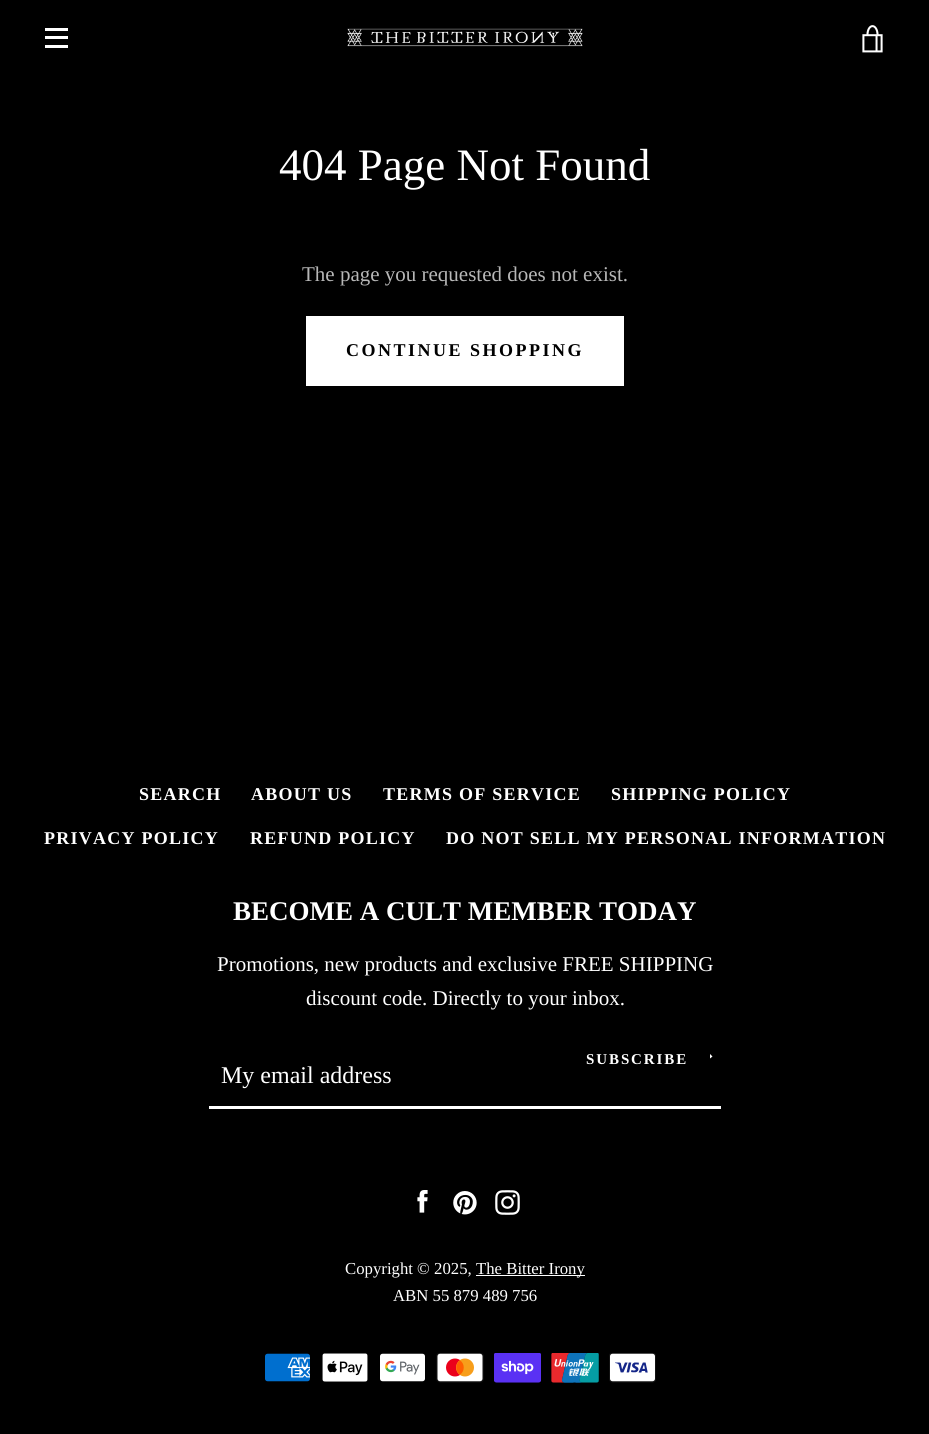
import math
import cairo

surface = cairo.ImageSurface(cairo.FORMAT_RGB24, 929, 1434)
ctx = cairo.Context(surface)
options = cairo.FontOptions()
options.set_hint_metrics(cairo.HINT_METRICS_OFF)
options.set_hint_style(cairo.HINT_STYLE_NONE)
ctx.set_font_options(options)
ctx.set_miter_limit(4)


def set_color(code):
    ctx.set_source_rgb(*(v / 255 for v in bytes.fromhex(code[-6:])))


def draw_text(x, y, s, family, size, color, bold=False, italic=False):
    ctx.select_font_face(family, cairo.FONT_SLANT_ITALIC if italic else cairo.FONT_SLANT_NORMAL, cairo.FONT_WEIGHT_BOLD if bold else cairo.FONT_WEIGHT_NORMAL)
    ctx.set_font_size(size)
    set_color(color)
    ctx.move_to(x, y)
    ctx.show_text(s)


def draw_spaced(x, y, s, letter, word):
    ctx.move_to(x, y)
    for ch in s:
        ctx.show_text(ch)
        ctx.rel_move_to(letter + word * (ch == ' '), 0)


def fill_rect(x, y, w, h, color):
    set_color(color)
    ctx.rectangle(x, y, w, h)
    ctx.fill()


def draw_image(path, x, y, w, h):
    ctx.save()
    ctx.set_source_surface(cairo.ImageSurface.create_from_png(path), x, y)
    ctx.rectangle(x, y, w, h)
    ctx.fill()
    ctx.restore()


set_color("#000000")
ctx.paint()
fill_rect(45, 28, 23, 3, "#ffffff")
fill_rect(45, 36, 23, 3, "#ffffff")
fill_rect(45, 45, 23, 3, "#ffffff")
draw_image("assets/img1.png", 347, 28, 236, 19)
draw_image("assets/img2.png", 862, 25, 21, 28)
draw_text(279, 180, "404 Page Not Found", "Liberation Serif", 45, "#ffffff")
draw_text(302, 281, "The page you requested does not exist.", "Liberation Serif", 21, "#b7b7b7")
fill_rect(306, 316, 318, 70, "#ffffff")
ctx.select_font_face("Liberation Serif", cairo.FONT_SLANT_NORMAL, cairo.FONT_WEIGHT_BOLD)
ctx.set_font_size(18)
set_color("#000000")
draw_spaced(346, 356, "CONTINUE SHOPPING", 2.5, 0)
set_color("#ffffff")
draw_spaced(139, 800, "SEARCH", 1.25, 0)
draw_spaced(251, 800, "ABOUT US", 1.25, 0)
draw_spaced(383, 800, "TERMS OF SERVICE", 1.25, 0)
draw_spaced(611, 800, "SHIPPING POLICY", 1.25, 0)
draw_spaced(44, 844, "PRIVACY POLICY", 1.25, 0)
draw_spaced(250, 844, "REFUND POLICY", 1.25, 0)
draw_spaced(446, 844, "DO NOT SELL MY PERSONAL INFORMATION", 1.25, 0)
draw_text(233, 920, "BECOME A CULT MEMBER TODAY", "Liberation Serif", 27, "#ffffff", bold=True)
draw_text(217, 971, "Promotions, new products and exclusive FREE SHIPPING", "Liberation Serif", 21, "#ffffff")
draw_text(306, 1005, "discount code. Directly to your inbox.", "Liberation Serif", 21, "#ffffff")
fill_rect(209, 1106, 512, 3, "#ffffff")
ctx.select_font_face("Liberation Serif", cairo.FONT_SLANT_NORMAL, cairo.FONT_WEIGHT_BOLD)
ctx.set_font_size(15)
draw_spaced(586, 1064, "SUBSCRIBE", 1.9, 0)
ctx.new_path()
ctx.move_to(712.5, 1056.5)
ctx.line_to(710, 1058.5)
ctx.line_to(710, 1054)
ctx.close_path()
ctx.fill()
draw_text(221, 1083, "My email address", "Liberation Serif", 24, "#ffffff")
draw_image("assets/img3.png", 417, 1190, 11, 23)
draw_image("assets/img4.png", 453, 1191, 24, 24)
draw_image("assets/img5.png", 495, 1190, 25, 25)
draw_text(345, 1274, "Copyright © 2025,", "Liberation Serif", 16.75, "#ffffff")
fill_rect(476, 1275, 109, 1, "#ffffff")
draw_text(476, 1274, "The Bitter Irony", "Liberation Serif", 16.75, "#ffffff")
draw_text(393, 1301, "ABN 55 879 489 756", "Liberation Serif", 16.75, "#ffffff")
draw_image("assets/img6.png", 265, 1353, 45, 29)
draw_image("assets/img7.png", 322, 1353, 46, 29)
draw_image("assets/img8.png", 380, 1353, 45, 29)
draw_image("assets/img9.png", 436, 1353, 48, 30)
draw_image("assets/img10.png", 494, 1353, 47, 30)
draw_image("assets/img11.png", 551, 1353, 48, 30)
draw_image("assets/img12.png", 609, 1353, 47, 30)
surface.write_to_png("output.png")
